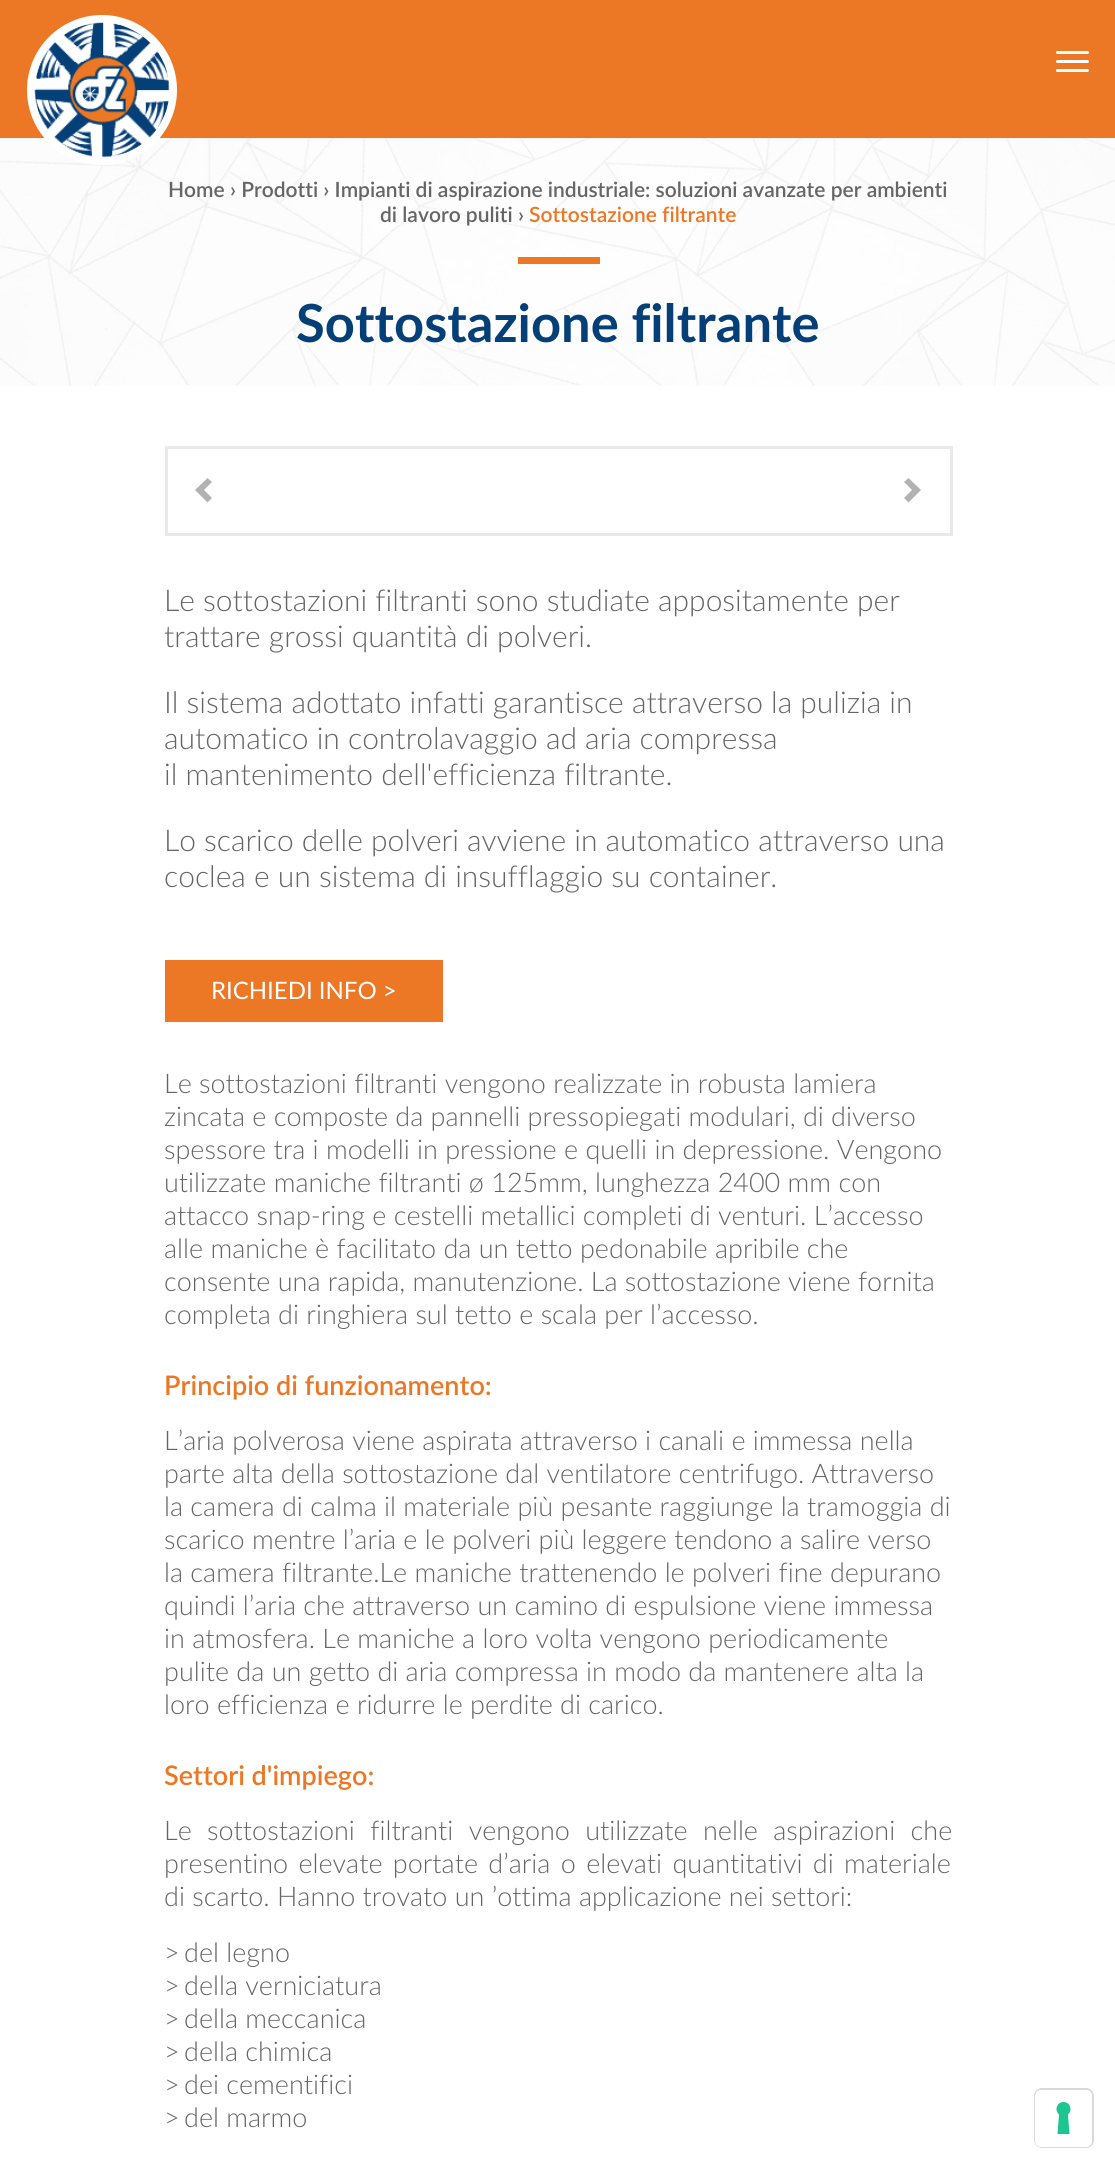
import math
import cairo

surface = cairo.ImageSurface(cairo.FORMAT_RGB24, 1115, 2170)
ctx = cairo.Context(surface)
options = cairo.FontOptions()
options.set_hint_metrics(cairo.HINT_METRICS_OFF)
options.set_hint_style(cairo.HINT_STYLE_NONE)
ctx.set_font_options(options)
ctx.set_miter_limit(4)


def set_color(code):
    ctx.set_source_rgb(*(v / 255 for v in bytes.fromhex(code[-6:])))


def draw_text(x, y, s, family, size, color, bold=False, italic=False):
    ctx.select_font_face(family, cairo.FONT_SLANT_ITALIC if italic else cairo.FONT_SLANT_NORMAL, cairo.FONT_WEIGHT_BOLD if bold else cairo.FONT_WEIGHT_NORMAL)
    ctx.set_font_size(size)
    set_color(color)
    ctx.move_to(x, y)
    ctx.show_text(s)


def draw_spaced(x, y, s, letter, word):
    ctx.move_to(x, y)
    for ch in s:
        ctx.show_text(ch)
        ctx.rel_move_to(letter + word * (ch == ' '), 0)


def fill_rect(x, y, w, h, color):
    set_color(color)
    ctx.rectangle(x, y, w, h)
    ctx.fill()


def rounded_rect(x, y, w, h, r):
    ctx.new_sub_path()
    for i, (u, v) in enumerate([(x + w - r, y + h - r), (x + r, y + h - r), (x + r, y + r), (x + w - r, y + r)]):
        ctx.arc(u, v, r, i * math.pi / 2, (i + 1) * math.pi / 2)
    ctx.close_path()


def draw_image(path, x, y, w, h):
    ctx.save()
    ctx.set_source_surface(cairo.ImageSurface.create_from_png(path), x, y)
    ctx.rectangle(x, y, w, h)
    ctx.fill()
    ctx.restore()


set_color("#ffffff")
ctx.paint()
fill_rect(0, 0, 1115, 138, "#ec7724")
draw_image("assets/img2.png", 0, 138, 1115, 248)
set_color("#ffffff")
ctx.arc(102, 90, 75, 0, 2 * math.pi)
ctx.fill()
draw_image("assets/img1.png", 34, 22, 136, 136)
rounded_rect(1056, 51, 33, 3, 1.5)
ctx.fill()
rounded_rect(1056, 60, 33, 3, 1.5)
ctx.fill()
rounded_rect(1056, 69, 33, 3, 1.5)
ctx.fill()
draw_text(168, 197, "Home › Prodotti › Impianti di aspirazione industriale: soluzioni avanzate per ambienti", "Lato SemiBold", 21, "#656565")
draw_text(380, 222, "di lavoro puliti ›", "Lato SemiBold", 21, "#656565")
draw_text(529, 222, "Sottostazione filtrante", "Lato SemiBold", 21, "#ec7724")
fill_rect(518, 257, 82, 7, "#ec7724")
draw_text(296, 342, "Sottostazione filtrante", "Lato", 52.5, "#053f77", bold=True)
ctx.rectangle(166.5, 447.5, 785, 87)
set_color("#e9e9e9")
ctx.set_line_width(3)
ctx.stroke()
set_color("#b2b2b2")
ctx.new_path()
ctx.move_to(212, 482)
ctx.line_to(204, 490)
ctx.line_to(212, 498)
ctx.line_to(207.5, 502.5)
ctx.line_to(195, 490)
ctx.line_to(207.5, 478)
ctx.close_path()
ctx.fill()
ctx.new_path()
ctx.move_to(921, 490)
ctx.line_to(908.5, 502.5)
ctx.line_to(904, 498)
ctx.line_to(912, 490)
ctx.line_to(904, 482)
ctx.line_to(908.5, 478)
ctx.close_path()
ctx.fill()
draw_text(164, 611, "Le sottostazioni filtranti sono studiate appositamente per", "Lato Light", 30, "#656565")
draw_text(164, 647, "trattare grossi quantità di polveri.", "Lato Light", 30, "#656565")
draw_text(164, 713, "Il sistema adottato infatti garantisce attraverso la pulizia in", "Lato Light", 30, "#656565")
draw_text(164, 749, "automatico in controlavaggio ad aria compressa", "Lato Light", 30, "#656565")
draw_text(164, 785, "il mantenimento dell'efficienza filtrante.", "Lato Light", 30, "#656565")
draw_text(164, 851, "Lo scarico delle polveri avviene in automatico attraverso una", "Lato Light", 30, "#656565")
draw_text(164, 887, "coclea e un sistema di insufflaggio su container.", "Lato Light", 30, "#656565")
fill_rect(165, 960, 278, 62, "#ec7724")
draw_text(211, 999, "RICHIEDI INFO >", "Lato", 24, "#ffffff")
draw_text(164, 1093, "Le sottostazioni filtranti vengono realizzate in robusta lamiera", "Lato Light", 27, "#656565")
draw_text(164, 1126, "zincata e composte da pannelli pressopiegati modulari, di diverso", "Lato Light", 27, "#656565")
draw_text(164, 1159, "spessore tra i modelli in pressione e quelli in depressione. Vengono", "Lato Light", 27, "#656565")
draw_text(164, 1192, "utilizzate maniche filtranti ø 125mm, lunghezza 2400 mm con", "Lato Light", 27, "#656565")
draw_text(164, 1225, "attacco snap-ring e cestelli metallici completi di venturi. L’accesso", "Lato Light", 27, "#656565")
draw_text(164, 1258, "alle maniche è facilitato da un tetto pedonabile apribile che", "Lato Light", 27, "#656565")
draw_text(164, 1291, "consente una rapida, manutenzione. La sottostazione viene fornita", "Lato Light", 27, "#656565")
draw_text(164, 1324, "completa di ringhiera sul tetto e scala per l’accesso.", "Lato Light", 27, "#656565")
draw_text(164, 1395, "Principio di funzionamento:", "Lato SemiBold", 27, "#ec7724")
draw_text(164, 1450, "L’aria polverosa viene aspirata attraverso i canali e immessa nella", "Lato Light", 27, "#656565")
draw_text(164, 1483, "parte alta della sottostazione dal ventilatore centrifugo. Attraverso", "Lato Light", 27, "#656565")
draw_text(164, 1516, "la camera di calma il materiale più pesante raggiunge la tramoggia di", "Lato Light", 27, "#656565")
draw_text(164, 1549, "scarico mentre l’aria e le polveri più leggere tendono a salire verso", "Lato Light", 27, "#656565")
draw_text(164, 1582, "la camera filtrante.Le maniche trattenendo le polveri fine depurano", "Lato Light", 27, "#656565")
draw_text(164, 1615, "quindi l’aria che attraverso un camino di espulsione viene immessa", "Lato Light", 27, "#656565")
draw_text(164, 1648, "in atmosfera. Le maniche a loro volta vengono periodicamente", "Lato Light", 27, "#656565")
draw_text(164, 1681, "pulite da un getto di aria compressa in modo da mantenere alta la", "Lato Light", 27, "#656565")
draw_text(164, 1714, "loro efficienza e ridurre le perdite di carico.", "Lato Light", 27, "#656565")
draw_text(164, 1785, "Settori d'impiego:", "Lato SemiBold", 27, "#ec7724")
ctx.select_font_face("Lato Light")
set_color("#656565")
draw_spaced(164, 1840, "Le sottostazioni filtranti vengono utilizzate nelle aspirazioni che", 0, 8)
draw_spaced(164, 1873, "presentino elevate portate d’aria o elevati quantitativi di materiale", 0, 3)
draw_text(164, 1906, "di scarto. Hanno trovato un ’ottima applicazione nei settori:", "Lato Light", 27, "#656565")
draw_text(164, 1962, ">", "Lato Light", 27, "#656565")
draw_text(184, 1962, "del legno", "Lato Light", 27, "#656565")
draw_text(164, 1995, ">", "Lato Light", 27, "#656565")
draw_text(184, 1995, "della verniciatura", "Lato Light", 27, "#656565")
draw_text(164, 2028, ">", "Lato Light", 27, "#656565")
draw_text(184, 2028, "della meccanica", "Lato Light", 27, "#656565")
draw_text(164, 2061, ">", "Lato Light", 27, "#656565")
draw_text(184, 2061, "della chimica", "Lato Light", 27, "#656565")
draw_text(164, 2094, ">", "Lato Light", 27, "#656565")
draw_text(184, 2094, "dei cementifici", "Lato Light", 27, "#656565")
draw_text(164, 2127, ">", "Lato Light", 27, "#656565")
draw_text(184, 2127, "del marmo", "Lato Light", 27, "#656565")
rounded_rect(1035, 2089, 58, 58, 7)
set_color("#d9d9d9")
ctx.set_line_width(2)
ctx.stroke()
set_color("#ffffff")
rounded_rect(1035, 2090, 57, 57, 6)
ctx.fill()
set_color("#1cc691")
ctx.set_fill_rule(cairo.FILL_RULE_EVEN_ODD)
ctx.new_path()
ctx.move_to(1063.5, 2102)
ctx.curve_to(1070, 2102, 1073, 2110, 1068, 2114.5)
ctx.line_to(1069.5, 2134)
ctx.line_to(1057.5, 2134)
ctx.line_to(1059, 2114.5)
ctx.curve_to(1054, 2110, 1057, 2102, 1063.5, 2102)
ctx.close_path()
ctx.fill()
surface.write_to_png("output.png")
